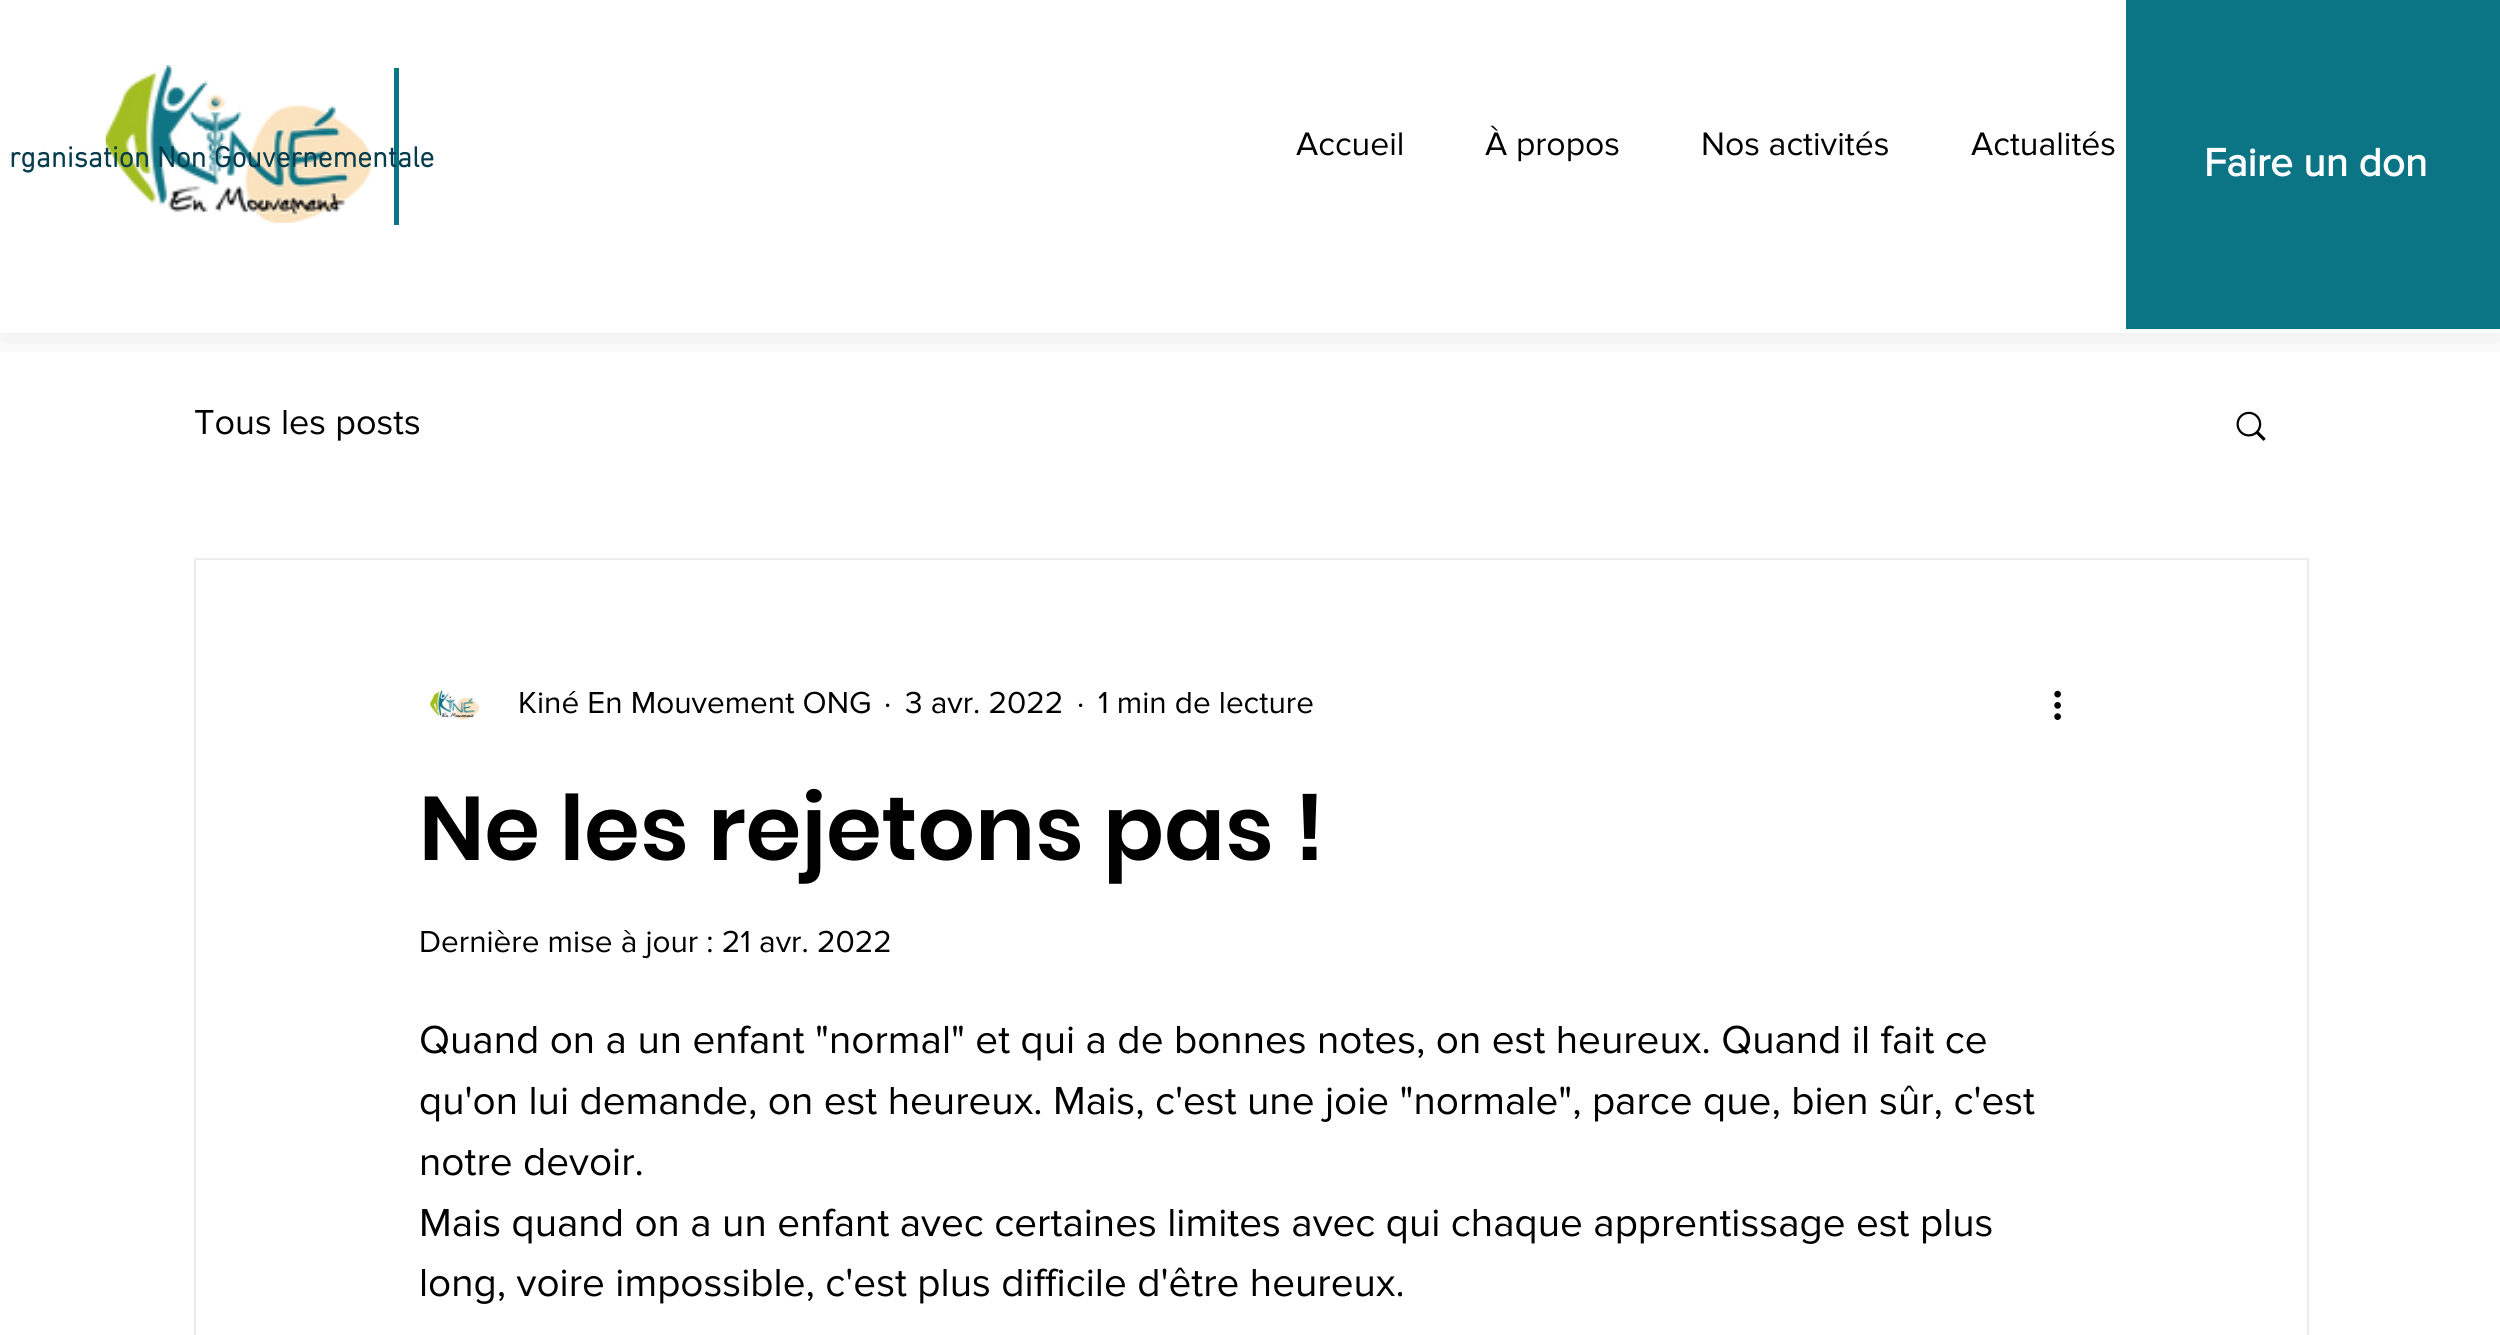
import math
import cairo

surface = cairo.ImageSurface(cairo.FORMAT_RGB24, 2500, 1335)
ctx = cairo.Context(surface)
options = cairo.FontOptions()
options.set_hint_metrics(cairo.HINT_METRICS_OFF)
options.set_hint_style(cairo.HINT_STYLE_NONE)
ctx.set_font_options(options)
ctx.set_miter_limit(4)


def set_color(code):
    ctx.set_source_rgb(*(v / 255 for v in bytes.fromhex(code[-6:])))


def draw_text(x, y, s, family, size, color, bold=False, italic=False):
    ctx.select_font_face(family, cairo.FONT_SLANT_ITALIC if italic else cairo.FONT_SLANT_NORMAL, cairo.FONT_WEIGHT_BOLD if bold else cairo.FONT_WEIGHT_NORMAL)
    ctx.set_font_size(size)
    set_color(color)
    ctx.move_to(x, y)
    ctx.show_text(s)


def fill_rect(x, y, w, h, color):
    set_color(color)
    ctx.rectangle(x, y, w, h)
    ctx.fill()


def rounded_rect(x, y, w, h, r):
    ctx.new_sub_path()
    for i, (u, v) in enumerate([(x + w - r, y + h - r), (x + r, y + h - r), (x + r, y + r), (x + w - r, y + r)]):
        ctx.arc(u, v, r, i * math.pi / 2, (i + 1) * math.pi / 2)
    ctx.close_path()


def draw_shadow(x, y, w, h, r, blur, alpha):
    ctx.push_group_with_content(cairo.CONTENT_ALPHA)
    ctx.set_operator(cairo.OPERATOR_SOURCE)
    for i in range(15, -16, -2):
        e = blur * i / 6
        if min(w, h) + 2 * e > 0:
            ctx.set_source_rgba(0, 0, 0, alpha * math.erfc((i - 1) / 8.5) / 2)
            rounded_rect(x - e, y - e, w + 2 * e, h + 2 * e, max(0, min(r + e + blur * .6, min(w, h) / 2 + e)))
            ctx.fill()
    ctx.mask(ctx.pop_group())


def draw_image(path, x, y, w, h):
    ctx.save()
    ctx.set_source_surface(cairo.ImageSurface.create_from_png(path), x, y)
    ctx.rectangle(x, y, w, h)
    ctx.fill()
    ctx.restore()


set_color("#ffffff")
ctx.paint()
ctx.save()
ctx.rectangle(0, 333, 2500, 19)
ctx.clip()
set_color("#000000")
draw_shadow(0, 0, 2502, 333, 0, 22.5, 0.1)
ctx.restore()
draw_image("assets/img1.png", 105, 65, 267, 158)
fill_rect(394, 68, 5, 157, "#0b7485")
draw_text(9, 167, "rganisation Non Gouvernementale", "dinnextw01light", 29.25, "#063c4d", bold=True)
draw_text(1296, 155, "Accueil", "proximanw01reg", 33.75, "#000000")
draw_text(1485, 155, "À propos", "proximanw01reg", 33.75, "#000000")
draw_text(1701, 155, "Nos activités", "proximanw01reg", 33.75, "#000000")
draw_text(1971, 155, "Actualités", "proximanw01reg", 33.75, "#000000")
fill_rect(2126, 0, 374, 329, "#0b7485")
draw_text(2204, 176, "Faire un don", "proximanw01reg", 40.5, "#ffffff", bold=True)
draw_text(194, 434, "Tous les posts", "proximanw01reg", 36, "#000000")
draw_image("assets/img2.png", 2236, 411, 30, 30)
ctx.rectangle(195, 559, 2113, 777)
set_color("#eeecec")
ctx.stroke()
draw_image("assets/img3.png", 430, 690, 50, 30)
draw_text(518, 713, "Kiné En Mouvement ONG", "proximanw01reg", 31.5, "#000000")
draw_text(884, 713, "·", "proximanw01reg", 31.5, "#000000")
draw_text(905, 713, "3 avr. 2022", "proximanw01reg", 31.5, "#000000")
draw_text(1077, 713, "·", "proximanw01reg", 31.5, "#000000")
draw_text(1098, 713, "1 min de lecture", "proximanw01reg", 31.5, "#000000")
draw_image("assets/img4.png", 2054, 690, 7, 30)
draw_text(419, 860, "Ne les rejetons pas !", "Poppins SemiBold", 90, "#000000")
draw_text(419, 952, "Dernière mise à jour : 21 avr. 2022", "proximanw01reg", 31.5, "#000000")
draw_text(419, 1053, "Quand on a un enfant \"normal\" et qui a de bonnes notes, on est heureux. Quand il fait ce", "proximanw01reg", 40.5, "#000000")
draw_text(419, 1114, "qu'on lui demande, on est heureux. Mais, c'est une joie \"normale\", parce que, bien sûr, c'est", "proximanw01reg", 40.5, "#000000")
draw_text(419, 1175, "notre devoir.", "proximanw01reg", 40.5, "#000000")
draw_text(419, 1236, "Mais quand on a un enfant avec certaines limites avec qui chaque apprentissage est plus", "proximanw01reg", 40.5, "#000000")
draw_text(419, 1296, "long, voire impossible, c'est plus difficile d'être heureux.", "proximanw01reg", 40.5, "#000000")
surface.write_to_png("output.png")
